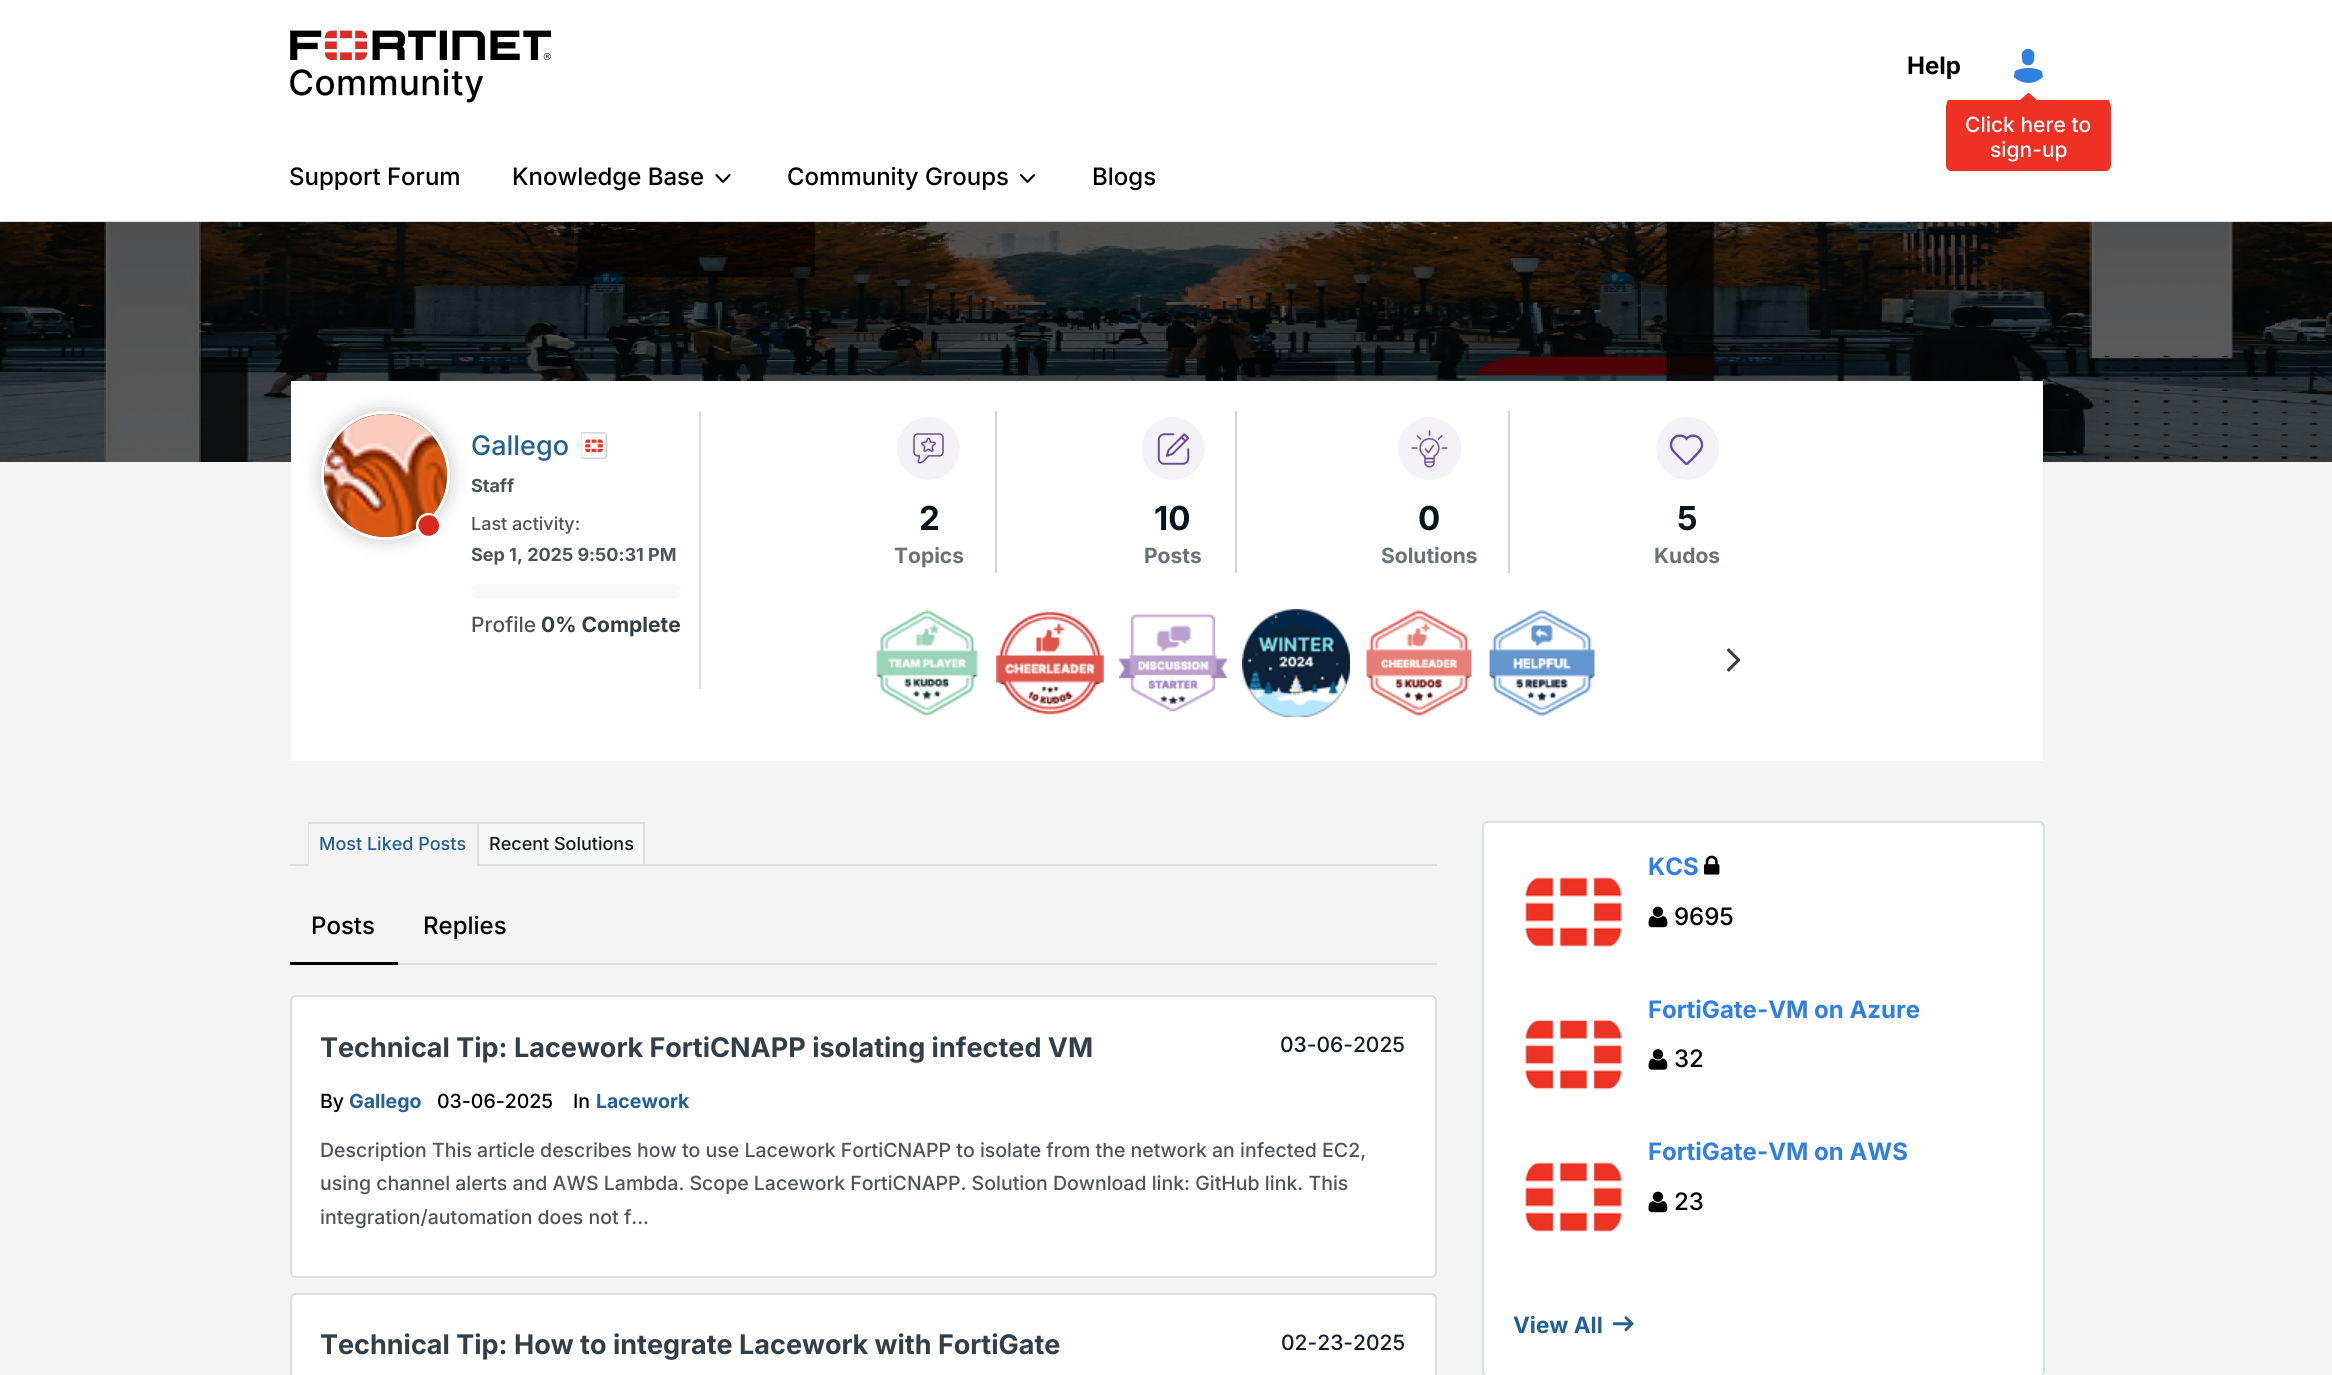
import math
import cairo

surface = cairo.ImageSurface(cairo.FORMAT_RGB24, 2332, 1375)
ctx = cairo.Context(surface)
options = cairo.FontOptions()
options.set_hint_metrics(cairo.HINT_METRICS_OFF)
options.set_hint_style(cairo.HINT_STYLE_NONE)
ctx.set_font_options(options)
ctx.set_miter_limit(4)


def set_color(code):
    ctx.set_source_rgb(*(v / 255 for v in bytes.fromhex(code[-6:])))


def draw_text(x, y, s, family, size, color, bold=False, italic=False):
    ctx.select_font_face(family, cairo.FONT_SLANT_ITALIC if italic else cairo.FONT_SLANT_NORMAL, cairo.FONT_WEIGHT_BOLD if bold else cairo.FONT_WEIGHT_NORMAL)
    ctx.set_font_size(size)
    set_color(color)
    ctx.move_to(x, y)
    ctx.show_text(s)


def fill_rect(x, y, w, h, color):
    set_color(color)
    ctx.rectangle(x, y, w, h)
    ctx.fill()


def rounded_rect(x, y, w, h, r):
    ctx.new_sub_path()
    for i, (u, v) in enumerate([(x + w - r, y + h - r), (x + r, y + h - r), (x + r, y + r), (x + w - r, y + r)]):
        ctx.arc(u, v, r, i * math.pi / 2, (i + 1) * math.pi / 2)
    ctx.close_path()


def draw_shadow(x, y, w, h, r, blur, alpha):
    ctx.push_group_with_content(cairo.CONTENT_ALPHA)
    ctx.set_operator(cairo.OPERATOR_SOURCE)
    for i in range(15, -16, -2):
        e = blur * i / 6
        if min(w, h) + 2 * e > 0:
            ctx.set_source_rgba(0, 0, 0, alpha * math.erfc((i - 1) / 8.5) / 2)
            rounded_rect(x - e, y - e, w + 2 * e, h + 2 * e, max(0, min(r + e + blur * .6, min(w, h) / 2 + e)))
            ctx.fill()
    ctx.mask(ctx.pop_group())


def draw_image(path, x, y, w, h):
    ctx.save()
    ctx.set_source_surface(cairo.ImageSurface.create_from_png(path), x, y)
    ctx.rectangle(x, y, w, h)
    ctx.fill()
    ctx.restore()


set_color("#f4f4f4")
ctx.paint()
fill_rect(0, 0, 2332, 221, "#ffffff")
draw_image("assets/img1.png", 290, 30, 261, 73)
draw_text(1907, 74, "Help", "Inter", 24, "#000000", bold=True)
draw_image("assets/img2.png", 2013, 48, 30, 35)
set_color("#ee3124")
ctx.new_path()
ctx.move_to(2020, 100)
ctx.line_to(1948, 100)
ctx.curve_to(1947, 102, 1946, 104, 1946, 107)
ctx.line_to(1946, 166)
ctx.curve_to(1946, 168, 1948, 170, 1950, 171)
ctx.line_to(2107, 171)
ctx.curve_to(2109, 170, 2111, 168, 2111, 165)
ctx.line_to(2111, 108)
ctx.curve_to(2111, 105, 2110, 103, 2109, 100)
ctx.line_to(2037, 100)
ctx.line_to(2029, 93)
ctx.line_to(2028, 93)
ctx.close_path()
ctx.fill()
draw_text(1965, 132, "Click here to", "Inter Medium", 21, "#ffffff")
draw_text(1990, 157, "sign-up", "Inter Medium", 21, "#ffffff")
fill_rect(0, 221, 2332, 1, "#d9e1e2")
draw_text(289, 185, "Support Forum", "Inter Medium", 24, "#000000")
draw_text(512, 185, "Knowledge Base", "Inter Medium", 24, "#000000")
draw_image("assets/img3.png", 715, 174, 16, 9)
draw_text(787, 185, "Community Groups", "Inter Medium", 24, "#000000")
draw_image("assets/img4.png", 1020, 174, 15, 9)
draw_text(1092, 185, "Blogs", "Inter Medium", 24, "#000000")
draw_image("assets/img5.png", 0, 222, 2332, 240)
fill_rect(291, 381, 1752, 380, "#ffffff")
fill_rect(699, 411, 2, 278, "#dddddd")
set_color("#c7c7c7")
draw_shadow(321, 411, 129, 129, 64.5, 9, 1)
set_color("#5d5d5d")
ctx.arc(385.5, 475.5, 63, 0, 2 * math.pi)
ctx.fill_preserve()
set_color("#ffffff")
ctx.set_line_width(3)
ctx.stroke()
draw_image("assets/img6.png", 324, 414, 123, 123)
draw_text(471, 455, "Gallego", "Inter Medium", 27, "#236093")
draw_image("assets/img7.png", 581, 432, 27, 27)
draw_text(471, 492, "Staff", "Inter", 18, "#4f5458", bold=True)
rounded_rect(417.5, 514.5, 22, 23, 11)
set_color("#ffffff")
ctx.stroke()
set_color("#da291c")
ctx.new_path()
ctx.move_to(437.5, 520.5)
ctx.curve_to(444.5, 532, 426.5, 542.5, 420, 530.5)
ctx.curve_to(413, 519, 431, 508.5, 437.5, 520.5)
ctx.close_path()
ctx.fill()
draw_text(471, 530, "Last activity:", "Inter Medium", 18, "#4f5458")
draw_text(471, 561, "Sep 1, 2025 9:50:31 PM", "Inter", 18, "#4f5458", bold=True)
set_color("#faf9f8")
rounded_rect(471, 584, 210, 15, 7.5)
ctx.fill()
draw_text(471, 632, "Profile", "Inter Medium", 21, "#4f5458")
draw_text(541, 632, "0% Complete", "Inter", 21, "#323e48", bold=True)
fill_rect(995, 411, 2, 162, "#d2d5d9")
draw_image("assets/img8.png", 897, 417, 63, 63)
draw_text(919, 530, "2", "Inter", 33, "#03161e", bold=True)
draw_text(894, 563, "Topics", "Inter", 21, "#6b7177", bold=True)
fill_rect(1235, 411, 2, 162, "#d2d5d9")
draw_image("assets/img9.png", 1142, 417, 63, 63)
draw_text(1154, 530, "10", "Inter", 33, "#03161e", bold=True)
draw_text(1144, 563, "Posts", "Inter", 21, "#6b7177", bold=True)
fill_rect(1508, 411, 2, 162, "#d2d5d9")
draw_image("assets/img10.png", 1398, 417, 63, 63)
draw_text(1418, 530, "0", "Inter", 33, "#03161e", bold=True)
draw_text(1381, 563, "Solutions", "Inter", 21, "#6b7177", bold=True)
draw_image("assets/img11.png", 1656, 417, 63, 63)
draw_text(1677, 530, "5", "Inter", 33, "#03161e", bold=True)
draw_text(1654, 563, "Kudos", "Inter", 21, "#6b7177", bold=True)
draw_image("assets/img12.png", 875, 610, 104, 106)
draw_image("assets/img13.png", 996, 611, 108, 104)
draw_image("assets/img14.png", 1119, 613, 108, 100)
draw_image("assets/img15.png", 1242, 609, 108, 108)
draw_image("assets/img16.png", 1366, 610, 106, 106)
draw_image("assets/img17.png", 1489, 610, 106, 106)
draw_image("assets/img18.png", 1726, 648, 15, 24)
fill_rect(290, 864, 1147, 2, "#dddddd")
fill_rect(308, 864, 169, 2, "#f4f4f4")
fill_rect(308, 822, 171, 2, "#dddddd")
ctx.new_path()
ctx.move_to(308, 866)
ctx.line_to(308, 822)
ctx.line_to(309, 824)
ctx.line_to(309, 864)
ctx.close_path()
ctx.fill()
draw_text(319, 850, "Most Liked Posts", "Inter Medium", 18, "#236093")
set_color("#f6f8f9")
ctx.rectangle(478, 823, 166, 42)
ctx.fill_preserve()
set_color("#dddddd")
ctx.set_line_width(2)
ctx.stroke()
draw_text(489, 850, "Recent Solutions", "Inter Medium", 18, "#191919")
fill_rect(398, 963, 1039, 2, "#d9e1e2")
fill_rect(290, 962, 108, 3, "#000000")
draw_text(311, 934, "Posts", "Inter Medium", 24, "#000000")
draw_text(423, 934, "Replies", "Inter Medium", 24, "#000000")
set_color("#ffffff")
rounded_rect(291, 996, 1145, 281, 5)
ctx.fill_preserve()
set_color("#dddddd")
ctx.stroke()
draw_text(320, 1057, "Technical Tip: Lacework FortiCNAPP isolating infected VM", "Inter", 27, "#323e48", bold=True)
draw_text(320, 1108, "By", "Inter Medium", 19.5, "#000000")
draw_text(349, 1108, "Gallego", "Inter", 19.5, "#236093", bold=True)
draw_text(437, 1108, "03-06-2025", "Inter Medium", 19.5, "#000000")
draw_text(573, 1108, "In", "Inter Medium", 19.5, "#000000")
draw_text(596, 1108, "Lacework", "Inter", 19.5, "#236093", bold=True)
draw_text(1280, 1052, "03-06-2025", "Inter Medium", 21, "#131e29")
draw_text(320, 1157, "Description This article describes how to use Lacework FortiCNAPP to isolate from the network an infected EC2,", "Inter Medium", 19.5, "#4f5458")
draw_text(320, 1190, "using channel alerts and AWS Lambda. Scope Lacework FortiCNAPP. Solution Download link: GitHub link. This", "Inter Medium", 19.5, "#4f5458")
draw_text(320, 1224, "integration/automation does not f...", "Inter Medium", 19.5, "#4f5458")
set_color("#ffffff")
rounded_rect(291, 1294, 1145, 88, 5)
ctx.fill_preserve()
set_color("#dddddd")
ctx.stroke()
draw_text(320, 1354, "Technical Tip: How to integrate Lacework with FortiGate", "Inter", 27, "#323e48", bold=True)
draw_text(1281, 1350, "02-23-2025", "Inter Medium", 21, "#131e29")
set_color("#ffffff")
rounded_rect(1483, 822, 561, 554, 5)
ctx.fill_preserve()
set_color("#d9e1e2")
ctx.stroke()
draw_text(1648, 875, "KCS", "Inter", 24, "#307fe2", bold=True)
draw_image("assets/img19.png", 1704, 855, 16, 20)
draw_image("assets/img20.png", 1525, 877, 97, 70)
draw_image("assets/img21.png", 1648, 906, 20, 22)
draw_text(1674, 925, "9695", "Inter Medium", 24, "#000000")
draw_text(1648, 1018, "FortiGate-VM on Azure", "Inter", 24, "#307fe2", bold=True)
draw_image("assets/img22.png", 1525, 1019, 97, 71)
draw_image("assets/img23.png", 1648, 1049, 20, 21)
draw_text(1674, 1067, "32", "Inter Medium", 24, "#000000")
draw_text(1648, 1160, "FortiGate-VM on AWS", "Inter", 24, "#307fe2", bold=True)
draw_image("assets/img20.png", 1525, 1162, 97, 70)
draw_image("assets/img21.png", 1648, 1191, 20, 22)
draw_text(1674, 1210, "23", "Inter Medium", 24, "#000000")
draw_text(1513, 1333, "View All", "Inter", 22.5, "#236093", bold=True)
draw_image("assets/img24.png", 1613, 1316, 21, 16)
surface.write_to_png("output.png")
